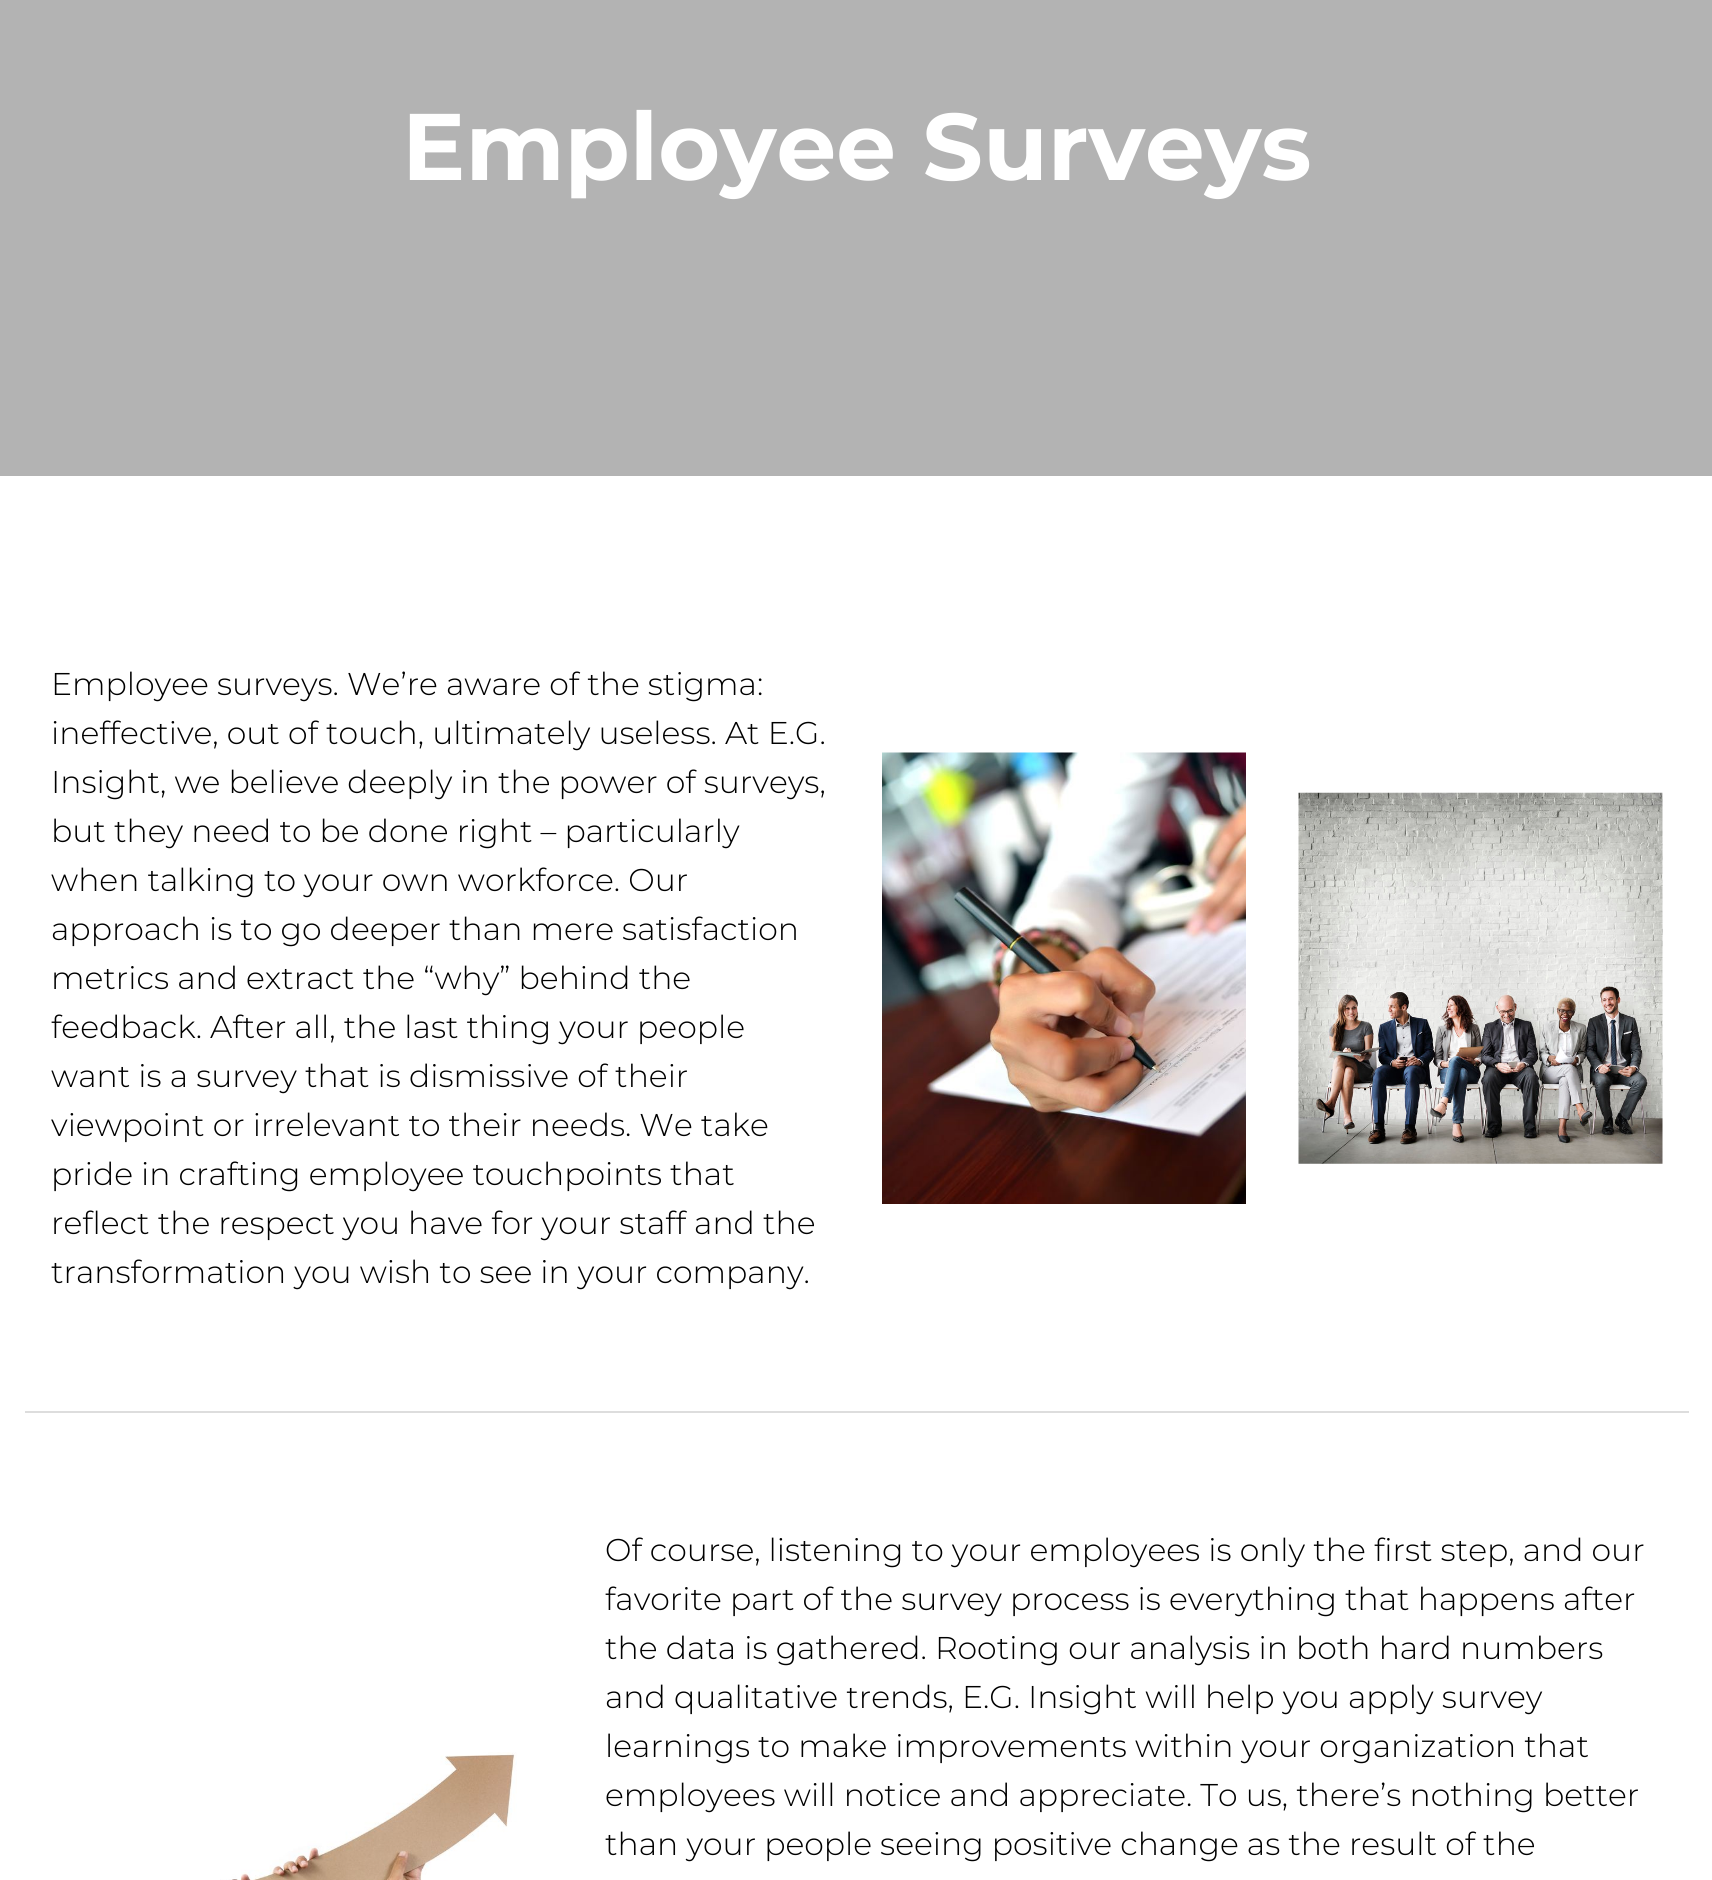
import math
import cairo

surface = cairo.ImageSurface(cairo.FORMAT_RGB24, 1712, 1880)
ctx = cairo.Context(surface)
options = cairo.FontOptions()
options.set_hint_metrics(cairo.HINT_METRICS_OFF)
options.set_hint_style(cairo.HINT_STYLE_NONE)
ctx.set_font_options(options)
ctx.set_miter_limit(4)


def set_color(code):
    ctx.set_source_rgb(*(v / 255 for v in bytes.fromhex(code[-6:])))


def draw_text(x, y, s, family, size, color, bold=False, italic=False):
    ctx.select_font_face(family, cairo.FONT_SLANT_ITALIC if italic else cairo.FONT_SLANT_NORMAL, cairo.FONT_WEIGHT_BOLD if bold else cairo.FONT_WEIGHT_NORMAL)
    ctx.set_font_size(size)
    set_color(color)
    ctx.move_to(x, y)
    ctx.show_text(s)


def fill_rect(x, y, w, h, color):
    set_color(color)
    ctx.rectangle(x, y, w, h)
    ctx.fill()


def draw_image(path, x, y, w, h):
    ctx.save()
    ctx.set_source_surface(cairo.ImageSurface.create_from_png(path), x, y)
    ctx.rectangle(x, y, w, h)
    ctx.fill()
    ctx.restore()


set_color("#ffffff")
ctx.paint()
fill_rect(0, 0, 1712, 476, "#b3b3b3")
draw_text(402, 180, "Employee Surveys", "Montserrat", 94.5, "#ffffff", bold=True)
fill_rect(25, 1411, 1664, 2, "#dddddd")
draw_text(51, 695, "Employee surveys. We’re aware of the stigma:", "Montserrat Light", 31.5, "#000000")
draw_text(51, 744, "ineffective, out of touch, ultimately useless. At E.G.", "Montserrat Light", 31.5, "#000000")
draw_text(51, 793, "Insight, we believe deeply in the power of surveys,", "Montserrat Light", 31.5, "#000000")
draw_text(51, 842, "but they need to be done right – particularly", "Montserrat Light", 31.5, "#000000")
draw_text(51, 891, "when talking to your own workforce. Our", "Montserrat Light", 31.5, "#000000")
draw_text(51, 940, "approach is to go deeper than mere satisfaction", "Montserrat Light", 31.5, "#000000")
draw_text(51, 989, "metrics and extract the “why” behind the", "Montserrat Light", 31.5, "#000000")
draw_text(51, 1038, "feedback. After all, the last thing your people", "Montserrat Light", 31.5, "#000000")
draw_text(51, 1087, "want is a survey that is dismissive of their", "Montserrat Light", 31.5, "#000000")
draw_text(51, 1136, "viewpoint or irrelevant to their needs. We take", "Montserrat Light", 31.5, "#000000")
draw_text(51, 1185, "pride in crafting employee touchpoints that", "Montserrat Light", 31.5, "#000000")
draw_text(51, 1234, "reflect the respect you have for your staff and the", "Montserrat Light", 31.5, "#000000")
draw_text(51, 1283, "transformation you wish to see in your company.", "Montserrat Light", 31.5, "#000000")
draw_image("assets/img1.png", 882, 752, 364, 452)
draw_image("assets/img2.png", 1298, 792, 365, 372)
draw_image("assets/img3.png", 220, 1752, 297, 128)
draw_text(605, 1561, "Of course, listening to your employees is only the first step, and our", "Montserrat Light", 31.5, "#000000")
draw_text(605, 1610, "favorite part of the survey process is everything that happens after", "Montserrat Light", 31.5, "#000000")
draw_text(605, 1659, "the data is gathered. Rooting our analysis in both hard numbers", "Montserrat Light", 31.5, "#000000")
draw_text(605, 1708, "and qualitative trends, E.G. Insight will help you apply survey", "Montserrat Light", 31.5, "#000000")
draw_text(605, 1757, "learnings to make improvements within your organization that", "Montserrat Light", 31.5, "#000000")
draw_text(605, 1806, "employees will notice and appreciate. To us, there’s nothing better", "Montserrat Light", 31.5, "#000000")
draw_text(605, 1855, "than your people seeing positive change as the result of the", "Montserrat Light", 31.5, "#000000")
surface.write_to_png("output.png")
